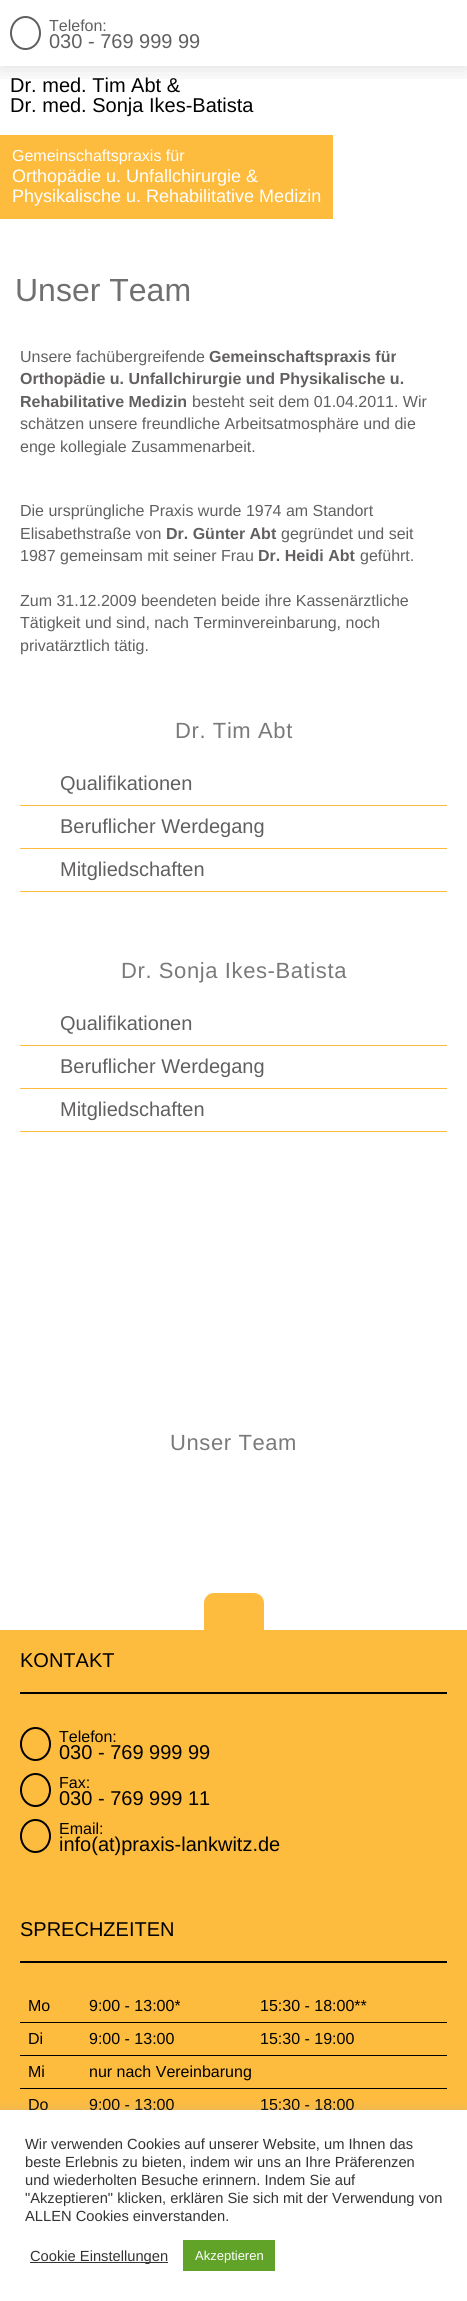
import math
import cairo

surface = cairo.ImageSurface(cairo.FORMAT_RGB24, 467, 2301)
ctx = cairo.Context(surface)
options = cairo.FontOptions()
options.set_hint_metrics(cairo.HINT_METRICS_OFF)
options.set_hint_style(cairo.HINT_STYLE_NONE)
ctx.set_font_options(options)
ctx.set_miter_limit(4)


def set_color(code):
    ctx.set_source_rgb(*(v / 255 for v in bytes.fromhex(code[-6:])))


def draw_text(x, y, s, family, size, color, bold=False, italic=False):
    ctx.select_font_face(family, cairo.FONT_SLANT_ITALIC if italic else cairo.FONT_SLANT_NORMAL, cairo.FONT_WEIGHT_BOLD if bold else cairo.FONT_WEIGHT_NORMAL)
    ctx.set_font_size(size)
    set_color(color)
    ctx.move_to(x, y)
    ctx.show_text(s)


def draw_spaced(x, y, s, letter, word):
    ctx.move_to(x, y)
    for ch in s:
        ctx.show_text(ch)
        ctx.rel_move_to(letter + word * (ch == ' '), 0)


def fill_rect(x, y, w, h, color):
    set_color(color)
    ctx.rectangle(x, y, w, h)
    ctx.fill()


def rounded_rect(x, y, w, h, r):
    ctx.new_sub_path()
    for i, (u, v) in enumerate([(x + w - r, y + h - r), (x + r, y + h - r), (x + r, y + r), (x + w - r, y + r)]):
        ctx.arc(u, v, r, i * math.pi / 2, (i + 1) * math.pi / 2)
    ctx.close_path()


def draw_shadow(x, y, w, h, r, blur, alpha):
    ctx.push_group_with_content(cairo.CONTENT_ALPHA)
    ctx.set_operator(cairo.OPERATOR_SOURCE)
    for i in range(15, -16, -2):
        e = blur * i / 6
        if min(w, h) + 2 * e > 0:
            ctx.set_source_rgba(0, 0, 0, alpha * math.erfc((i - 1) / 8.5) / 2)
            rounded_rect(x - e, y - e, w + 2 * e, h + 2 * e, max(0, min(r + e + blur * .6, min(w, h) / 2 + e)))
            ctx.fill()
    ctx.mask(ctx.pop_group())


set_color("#ffffff")
ctx.paint()
ctx.save()
ctx.rectangle(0, 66, 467, 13)
ctx.clip()
set_color("#000000")
draw_shadow(0, 0, 467, 66, 0, 12, 0.15)
ctx.restore()
ctx.new_path()
ctx.move_to(25.5, 17)
ctx.curve_to(33.5, 17, 40, 24, 40, 33)
ctx.curve_to(40, 42, 33.5, 49, 25.5, 49)
ctx.curve_to(17.5, 49, 11, 42, 11, 33)
ctx.curve_to(11, 24, 17.5, 17, 25.5, 17)
ctx.close_path()
set_color("#5f5f5f")
ctx.stroke()
draw_text(49, 31, "Telefon:", "Liberation Sans", 16, "#625f5f")
draw_text(49, 48, "030 - 769 999 99", "Liberation Sans", 20, "#625f5f")
draw_text(10, 92, "Dr. med. Tim Abt &", "Liberation Sans", 20, "#000000")
draw_text(10, 112, "Dr. med. Sonja Ikes-Batista", "Liberation Sans", 20, "#000000")
fill_rect(0, 135, 333, 84, "#febc3e")
draw_text(12, 161, "Gemeinschaftspraxis für", "Liberation Sans", 16, "#ffffff")
draw_text(12, 182, "Orthopädie u. Unfallchirurgie &", "Liberation Sans", 18, "#ffffff")
draw_text(12, 202, "Physikalische u. Rehabilitative Medizin", "Liberation Sans", 18, "#ffffff")
draw_text(15, 301, "Unser Team", "Liberation Sans", 32, "#707070")
draw_text(20, 362, "Unsere fachübergreifende", "Liberation Sans", 16, "#625f5f")
draw_text(209, 362, "Gemeinschaftspraxis für", "Liberation Sans", 16, "#625f5f", bold=True)
draw_text(20, 384, "Orthopädie u. Unfallchirurgie und Physikalische u.", "Liberation Sans", 16, "#625f5f", bold=True)
draw_text(20, 407, "Rehabilitative Medizin", "Liberation Sans", 16, "#625f5f", bold=True)
draw_text(192, 407, "besteht seit dem 01.04.2011. Wir", "Liberation Sans", 16, "#625f5f")
draw_text(20, 429, "schätzen unsere freundliche Arbeitsatmosphäre und die", "Liberation Sans", 16, "#625f5f")
draw_text(20, 452, "enge kollegiale Zusammenarbeit.", "Liberation Sans", 16, "#625f5f")
draw_text(20, 516, "Die ursprüngliche Praxis wurde 1974 am Standort", "Liberation Sans", 16, "#625f5f")
draw_text(20, 539, "Elisabethstraße von", "Liberation Sans", 16, "#625f5f")
draw_text(166, 539, "Dr. Günter Abt", "Liberation Sans", 16, "#625f5f", bold=True)
draw_text(281, 539, "gegründet und seit", "Liberation Sans", 16, "#625f5f")
draw_text(20, 561, "1987 gemeinsam mit seiner Frau", "Liberation Sans", 16, "#625f5f")
draw_text(258, 561, "Dr. Heidi Abt", "Liberation Sans", 16, "#625f5f", bold=True)
draw_text(360, 561, "geführt.", "Liberation Sans", 16, "#625f5f")
draw_text(20, 606, "Zum 31.12.2009 beendeten beide ihre Kassenärztliche", "Liberation Sans", 16, "#625f5f")
draw_text(20, 628, "Tätigkeit und sind, nach Terminvereinbarung, noch", "Liberation Sans", 16, "#625f5f")
draw_text(20, 651, "privatärztlich tätig.", "Liberation Sans", 16, "#625f5f")
ctx.set_font_size(22)
set_color("#7a7a7a")
draw_spaced(175, 738, "Dr. Tim Abt", 0.6, 0)
fill_rect(20, 805, 427, 1, "#febc3e")
draw_text(60, 790, "Qualifikationen", "Liberation Sans", 20, "#625f5f")
fill_rect(20, 848, 427, 1, "#febc3e")
draw_text(60, 833, "Beruflicher Werdegang", "Liberation Sans", 20, "#625f5f")
fill_rect(20, 891, 427, 1, "#febc3e")
draw_text(60, 876, "Mitgliedschaften", "Liberation Sans", 20, "#625f5f")
ctx.set_font_size(22)
set_color("#7a7a7a")
draw_spaced(121, 978, "Dr. Sonja Ikes-Batista", 0.6, 0)
fill_rect(20, 1045, 427, 1, "#febc3e")
draw_text(60, 1030, "Qualifikationen", "Liberation Sans", 20, "#625f5f")
fill_rect(20, 1088, 427, 1, "#febc3e")
draw_text(60, 1073, "Beruflicher Werdegang", "Liberation Sans", 20, "#625f5f")
fill_rect(20, 1131, 427, 1, "#febc3e")
draw_text(60, 1116, "Mitgliedschaften", "Liberation Sans", 20, "#625f5f")
ctx.set_font_size(22)
set_color("#7a7a7a")
draw_spaced(170, 1450, "Unser Team", 0.6, 0)
set_color("#febc3e")
ctx.new_path()
ctx.move_to(214, 1593)
ctx.line_to(254, 1593)
ctx.curve_to(259.5, 1593, 264, 1597.5, 264, 1603)
ctx.line_to(264, 1630)
ctx.line_to(204, 1630)
ctx.line_to(204, 1603)
ctx.curve_to(204, 1597.5, 208.5, 1593, 214, 1593)
ctx.close_path()
ctx.fill()
fill_rect(0, 1630, 467, 480, "#febc3e")
draw_text(20, 1667, "KONTAKT", "Liberation Sans", 20, "#000000")
fill_rect(20, 1692, 427, 2, "#000000")
ctx.new_path()
ctx.move_to(35.5, 1728)
ctx.curve_to(43.5, 1728, 50, 1735, 50, 1744)
ctx.curve_to(50, 1753, 43.5, 1760, 35.5, 1760)
ctx.curve_to(27.5, 1760, 21, 1753, 21, 1744)
ctx.curve_to(21, 1735, 27.5, 1728, 35.5, 1728)
ctx.close_path()
ctx.stroke()
draw_text(59, 1742, "Telefon:", "Liberation Sans", 16, "#000000")
draw_text(59, 1759, "030 - 769 999 99", "Liberation Sans", 20, "#000000")
ctx.new_path()
ctx.move_to(35.5, 1774)
ctx.curve_to(43.5, 1774, 50, 1781, 50, 1790)
ctx.curve_to(50, 1799, 43.5, 1806, 35.5, 1806)
ctx.curve_to(27.5, 1806, 21, 1799, 21, 1790)
ctx.curve_to(21, 1781, 27.5, 1774, 35.5, 1774)
ctx.close_path()
ctx.stroke()
draw_text(59, 1788, "Fax:", "Liberation Sans", 16, "#000000")
draw_text(59, 1805, "030 - 769 999 11", "Liberation Sans", 20, "#000000")
ctx.new_path()
ctx.move_to(35.5, 1820)
ctx.curve_to(43.5, 1820, 50, 1827, 50, 1836)
ctx.curve_to(50, 1845, 43.5, 1852, 35.5, 1852)
ctx.curve_to(27.5, 1852, 21, 1845, 21, 1836)
ctx.curve_to(21, 1827, 27.5, 1820, 35.5, 1820)
ctx.close_path()
ctx.stroke()
draw_text(59, 1834, "Email:", "Liberation Sans", 16, "#000000")
draw_text(59, 1851, "info(at)praxis-lankwitz.de", "Liberation Sans", 20, "#000000")
draw_text(20, 1936, "SPRECHZEITEN", "Liberation Sans", 20, "#000000")
fill_rect(20, 1961, 427, 2, "#000000")
fill_rect(20, 2022, 427, 1, "#000000")
draw_text(28, 2011, "Mo", "Liberation Sans", 16, "#000000")
draw_text(89, 2011, "9:00 - 13:00*", "Liberation Sans", 16, "#000000")
draw_text(260, 2011, "15:30 - 18:00**", "Liberation Sans", 16, "#000000")
fill_rect(20, 2055, 427, 1, "#000000")
draw_text(28, 2044, "Di", "Liberation Sans", 16, "#000000")
draw_text(89, 2044, "9:00 - 13:00", "Liberation Sans", 16, "#000000")
draw_text(260, 2044, "15:30 - 19:00", "Liberation Sans", 16, "#000000")
fill_rect(20, 2088, 427, 1, "#000000")
draw_text(28, 2077, "Mi", "Liberation Sans", 16, "#000000")
draw_text(89, 2077, "nur nach Vereinbarung", "Liberation Sans", 16, "#000000")
draw_text(28, 2110, "Do", "Liberation Sans", 16, "#000000")
draw_text(89, 2110, "9:00 - 13:00", "Liberation Sans", 16, "#000000")
draw_text(260, 2110, "15:30 - 18:00", "Liberation Sans", 16, "#000000")
set_color("#acabab")
draw_shadow(0, 2109, 467, 191, 0, 5, 0.3)
fill_rect(0, 2110, 467, 191, "#ffffff")
draw_text(25, 2149, "Wir verwenden Cookies auf unserer Website, um Ihnen das", "Liberation Sans", 14.7, "#333333")
draw_text(25, 2167, "beste Erlebnis zu bieten, indem wir uns an Ihre Präferenzen", "Liberation Sans", 14.7, "#333333")
draw_text(25, 2185, "und wiederholten Besuche erinnern. Indem Sie auf", "Liberation Sans", 14.7, "#333333")
draw_text(25, 2203, "\"Akzeptieren\" klicken, erklären Sie sich mit der Verwendung von", "Liberation Sans", 14.7, "#333333")
draw_text(25, 2221, "ALLEN Cookies einverstanden.", "Liberation Sans", 14.7, "#333333")
fill_rect(30, 2262, 138, 1, "#333333")
draw_text(30, 2261, "Cookie Einstellungen", "Liberation Sans", 14.7, "#333333")
fill_rect(183, 2240, 92, 31, "#61a229")
draw_text(195, 2260, "Akzeptieren", "Liberation Sans", 13, "#ffffff")
surface.write_to_png("output.png")
